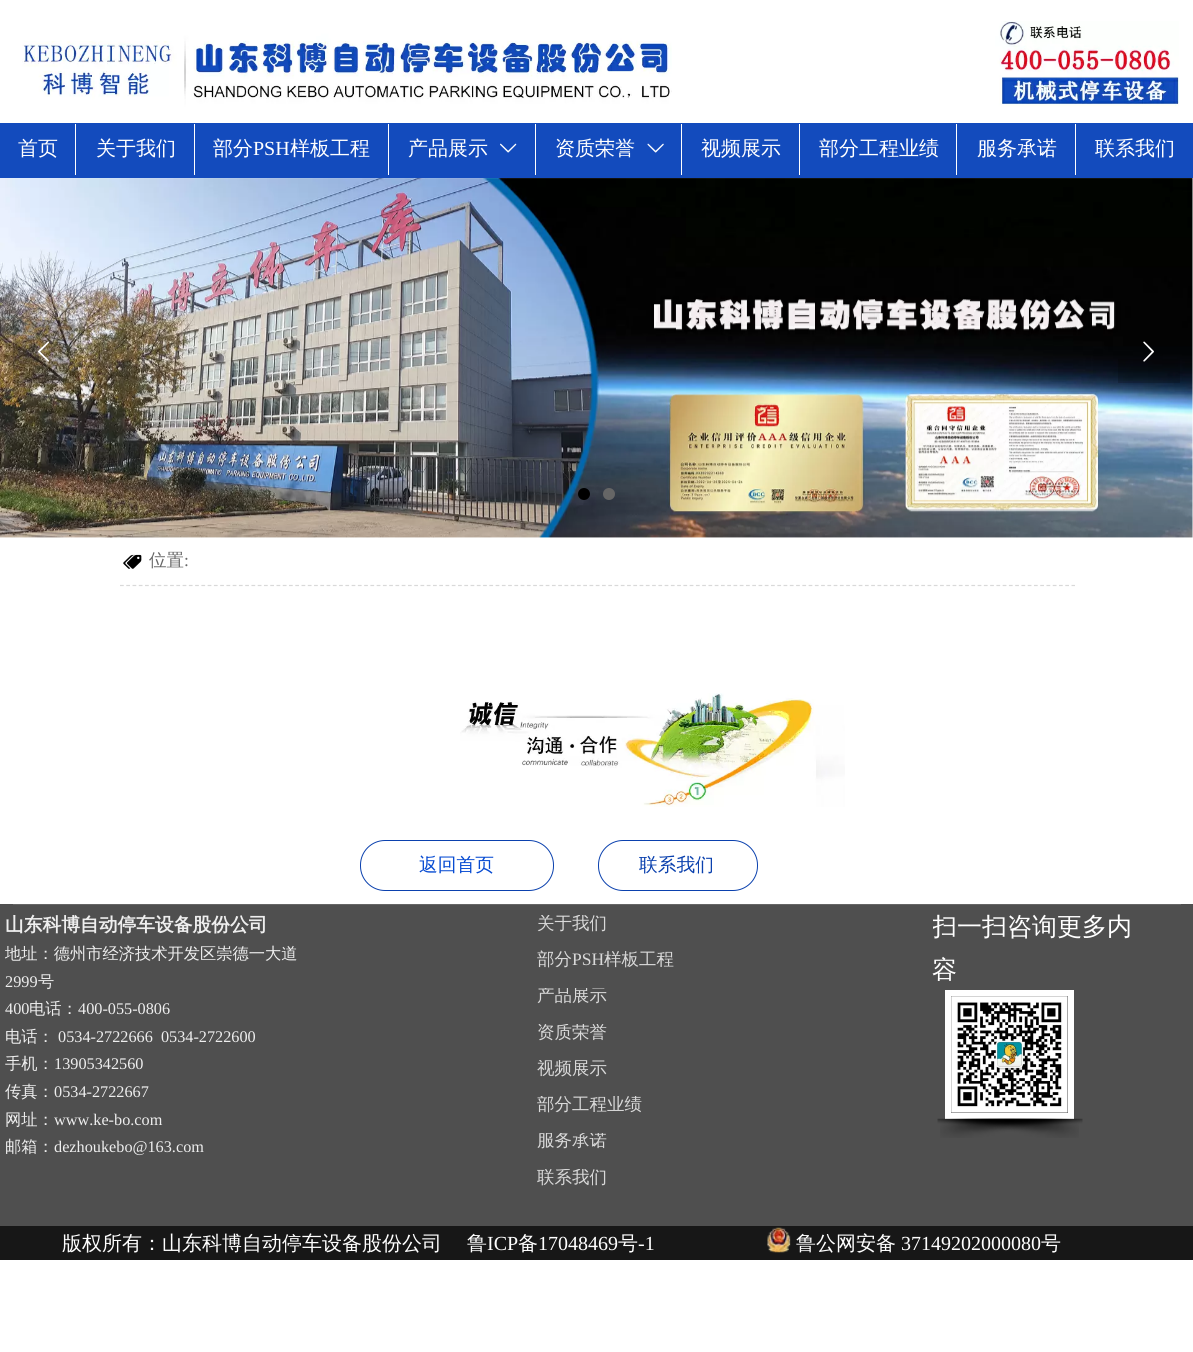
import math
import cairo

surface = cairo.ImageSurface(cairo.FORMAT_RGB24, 1193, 1352)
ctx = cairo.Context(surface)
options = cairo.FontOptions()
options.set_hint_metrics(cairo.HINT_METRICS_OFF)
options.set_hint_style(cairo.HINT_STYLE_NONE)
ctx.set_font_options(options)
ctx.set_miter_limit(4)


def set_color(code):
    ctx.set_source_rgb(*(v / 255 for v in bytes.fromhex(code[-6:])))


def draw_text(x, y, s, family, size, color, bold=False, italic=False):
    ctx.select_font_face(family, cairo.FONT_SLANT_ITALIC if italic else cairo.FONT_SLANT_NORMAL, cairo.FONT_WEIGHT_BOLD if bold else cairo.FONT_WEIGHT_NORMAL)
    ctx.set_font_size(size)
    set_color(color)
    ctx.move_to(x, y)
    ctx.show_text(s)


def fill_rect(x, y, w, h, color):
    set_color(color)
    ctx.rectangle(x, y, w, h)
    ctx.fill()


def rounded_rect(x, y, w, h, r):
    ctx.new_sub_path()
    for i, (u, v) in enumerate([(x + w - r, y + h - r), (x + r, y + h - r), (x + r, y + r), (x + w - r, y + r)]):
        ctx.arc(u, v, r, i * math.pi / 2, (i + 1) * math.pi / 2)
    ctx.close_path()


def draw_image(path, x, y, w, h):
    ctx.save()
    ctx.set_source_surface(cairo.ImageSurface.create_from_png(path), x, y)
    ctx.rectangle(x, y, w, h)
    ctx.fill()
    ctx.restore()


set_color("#ffffff")
ctx.paint()
draw_image("assets/img1.png", 22, 21, 1157, 86)
fill_rect(0, 123, 1193, 55, "#134bbd")
fill_rect(75, 124, 1, 51, "#ffffff")
draw_text(18, 155, "首页", "WenQuanYi Zen Hei Medium", 20, "#ffffff")
fill_rect(194, 124, 1, 51, "#ffffff")
draw_text(96, 155, "关于我们", "WenQuanYi Zen Hei Medium", 20, "#ffffff")
fill_rect(388, 124, 1, 51, "#ffffff")
draw_text(213, 155, "部分", "WenQuanYi Zen Hei Medium", 20, "#ffffff")
draw_text(253, 155, "PSH", "Liberation Serif", 20, "#ffffff")
draw_text(290, 155, "样板工程", "WenQuanYi Zen Hei Medium", 20, "#ffffff")
fill_rect(535, 124, 1, 51, "#ffffff")
draw_text(408, 155, "产品展示", "WenQuanYi Zen Hei Medium", 20, "#ffffff")
draw_image("assets/img2.png", 500, 143, 17, 10)
fill_rect(681, 124, 1, 51, "#ffffff")
draw_text(555, 155, "资质荣誉", "WenQuanYi Zen Hei Medium", 20, "#ffffff")
draw_image("assets/img3.png", 647, 143, 17, 10)
fill_rect(799, 124, 1, 51, "#ffffff")
draw_text(701, 155, "视频展示", "WenQuanYi Zen Hei Medium", 20, "#ffffff")
fill_rect(956, 124, 1, 51, "#ffffff")
draw_text(819, 155, "部分工程业绩", "WenQuanYi Zen Hei Medium", 20, "#ffffff")
fill_rect(1075, 124, 1, 51, "#ffffff")
draw_text(977, 155, "服务承诺", "WenQuanYi Zen Hei Medium", 20, "#ffffff")
draw_text(1095, 155, "联系我们", "WenQuanYi Zen Hei Medium", 20, "#ffffff")
draw_image("assets/img4.png", 0, 178, 1193, 360)
ctx.set_source_rgba(0, 0, 0, 0.2)
ctx.rectangle(13, 320, 62, 63)
ctx.fill()
draw_image("assets/img5.png", 37, 341, 12, 21)
ctx.rectangle(1118, 359, 62, 24)
ctx.fill()
draw_image("assets/img6.png", 1143, 341, 11, 21)
set_color("#000000")
ctx.arc(584, 494, 6, 0, 2 * math.pi)
ctx.fill()
set_color("#666666")
ctx.arc(609, 494, 6, 0, 2 * math.pi)
ctx.fill()
ctx.new_path()
ctx.move_to(120, 585.5)
ctx.line_to(1075, 585.5)
set_color("#d9d9d9")
ctx.set_line_width(1.2)
ctx.set_dash([3.75, 2.51])
ctx.stroke()
draw_image("assets/img7.png", 123, 554, 19, 15)
draw_text(149, 566, "位置", "WenQuanYi Zen Hei Medium", 17.5, "#666666")
draw_text(184, 566, ":", "Liberation Serif", 17.5, "#666666")
draw_image("assets/img8.png", 460, 693, 385, 114)
rounded_rect(360.5, 840.5, 193, 50, 24.5)
set_color("#0b41ae")
ctx.set_line_width(1)
ctx.set_dash([])
ctx.stroke()
draw_text(419, 871, "返回首页", "WenQuanYi Zen Hei Medium", 18.75, "#074bd2")
rounded_rect(598.5, 840.5, 159, 50, 24.5)
set_color("#0b41ae")
ctx.stroke()
draw_text(639, 871, "联系我们", "WenQuanYi Zen Hei Medium", 18.75, "#0b41ae")
fill_rect(0, 1226, 1193, 34, "#171717")
fill_rect(0, 904, 1193, 322, "#4f4f4f")
fill_rect(13, 904, 1168, 1, "#666666")
draw_text(5, 931, "山东科博自动停车设备股份公司", "WenQuanYi Zen Hei", 18.75, "#eeeeee", bold=True)
draw_text(5, 959, "地址：德州市经济技术开发区崇德一大道", "WenQuanYi Zen Hei Medium", 16.25, "#eeeeee")
draw_text(5, 987, "2999", "Liberation Serif", 16.25, "#eeeeee")
draw_text(38, 987, "号", "WenQuanYi Zen Hei Medium", 16.25, "#eeeeee")
draw_text(5, 1014, "400", "Liberation Serif", 16.25, "#eeeeee")
draw_text(29, 1014, "电话：", "WenQuanYi Zen Hei Medium", 16.25, "#eeeeee")
draw_text(78, 1014, "400-055-0806", "Liberation Serif", 16.25, "#eeeeee")
draw_text(5, 1042, "电话：", "WenQuanYi Zen Hei Medium", 16.25, "#eeeeee")
draw_text(58, 1042, "0534-2722666  0534-2722600", "Liberation Serif", 16.25, "#eeeeee")
draw_text(5, 1069, "手机：", "WenQuanYi Zen Hei Medium", 16.25, "#eeeeee")
draw_text(54, 1069, "13905342560", "Liberation Serif", 16.25, "#eeeeee")
draw_text(5, 1097, "传真：", "WenQuanYi Zen Hei Medium", 16.25, "#eeeeee")
draw_text(54, 1097, "0534-2722667", "Liberation Serif", 16.25, "#eeeeee")
draw_text(5, 1125, "网址：", "WenQuanYi Zen Hei Medium", 16.25, "#eeeeee")
draw_text(54, 1125, "www.ke-bo.com", "Liberation Serif", 16.25, "#eeeeee")
draw_text(5, 1152, "邮箱：", "WenQuanYi Zen Hei Medium", 16.25, "#eeeeee")
draw_text(54, 1152, "dezhoukebo@163.com", "Liberation Serif", 16.25, "#eeeeee")
ctx.save()
ctx.rectangle(524, 915, 185, 18)
ctx.clip()
draw_text(537, 929, "关于我们", "WenQuanYi Zen Hei Medium", 17.5, "#d9d9d9")
ctx.restore()
draw_text(537, 965, "部分", "WenQuanYi Zen Hei Medium", 17.5, "#d9d9d9")
draw_text(572, 965, "PSH", "Liberation Serif", 17.5, "#d9d9d9")
ctx.save()
ctx.rectangle(524, 951, 185, 18)
ctx.clip()
draw_text(604, 965, "样板工程", "WenQuanYi Zen Hei Medium", 17.5, "#d9d9d9")
ctx.restore()
ctx.save()
ctx.rectangle(524, 988, 185, 17)
ctx.clip()
draw_text(537, 1001, "产品展示", "WenQuanYi Zen Hei Medium", 17.5, "#d9d9d9")
ctx.restore()
ctx.save()
ctx.rectangle(524, 1024, 185, 17)
ctx.clip()
draw_text(537, 1038, "资质荣誉", "WenQuanYi Zen Hei Medium", 17.5, "#d9d9d9")
ctx.restore()
ctx.save()
ctx.rectangle(524, 1060, 185, 18)
ctx.clip()
draw_text(537, 1074, "视频展示", "WenQuanYi Zen Hei Medium", 17.5, "#d9d9d9")
ctx.restore()
ctx.save()
ctx.rectangle(524, 1096, 185, 18)
ctx.clip()
draw_text(537, 1110, "部分工程业绩", "WenQuanYi Zen Hei Medium", 17.5, "#d9d9d9")
ctx.restore()
ctx.save()
ctx.rectangle(524, 1133, 185, 17)
ctx.clip()
draw_text(537, 1146, "服务承诺", "WenQuanYi Zen Hei Medium", 17.5, "#d9d9d9")
ctx.restore()
ctx.save()
ctx.rectangle(524, 1169, 185, 17)
ctx.clip()
draw_text(537, 1183, "联系我们", "WenQuanYi Zen Hei Medium", 17.5, "#d9d9d9")
ctx.restore()
ctx.save()
ctx.rectangle(933, 905, 218, 85)
ctx.clip()
draw_text(932, 935, "扫一扫咨询更多内", "WenQuanYi Zen Hei Medium", 25, "#ffffff")
ctx.restore()
draw_text(932, 978, "容", "WenQuanYi Zen Hei Medium", 25, "#ffffff")
ctx.rectangle(948, 993, 123, 123)
ctx.set_line_width(6)
ctx.stroke()
draw_image("assets/img9.png", 951, 996, 117, 117)
draw_image("assets/img11.png", 940, 1118, 143, 20)
draw_image("assets/img10.png", 937, 1118, 142, 20)
draw_text(62, 1250, "版权所有：山东科博自动停车设备股份公司", "WenQuanYi Zen Hei Medium", 20, "#ffffff")
draw_text(467, 1250, "鲁", "WenQuanYi Zen Hei Medium", 20, "#ffffff")
draw_text(487, 1250, "ICP", "Liberation Serif", 20, "#ffffff")
draw_text(518, 1250, "备", "WenQuanYi Zen Hei Medium", 20, "#ffffff")
draw_text(538, 1250, "17048469", "Liberation Serif", 20, "#ffffff")
draw_text(618, 1250, "号", "WenQuanYi Zen Hei Medium", 20, "#ffffff")
draw_text(638, 1250, "-1", "Liberation Serif", 20, "#ffffff")
draw_image("assets/img12.png", 767, 1227, 24, 26)
draw_text(796, 1250, "鲁公网安备", "WenQuanYi Zen Hei Medium", 20, "#ffffff")
draw_text(901, 1250, "37149202000080", "Liberation Serif", 20, "#ffffff")
draw_text(1041, 1250, "号", "WenQuanYi Zen Hei Medium", 20, "#ffffff")
surface.write_to_png("output.png")
